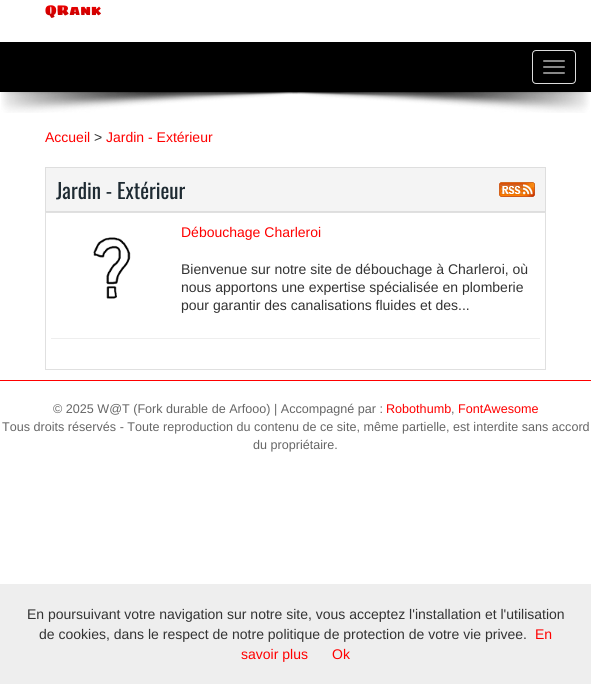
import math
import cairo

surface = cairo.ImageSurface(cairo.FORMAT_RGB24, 591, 684)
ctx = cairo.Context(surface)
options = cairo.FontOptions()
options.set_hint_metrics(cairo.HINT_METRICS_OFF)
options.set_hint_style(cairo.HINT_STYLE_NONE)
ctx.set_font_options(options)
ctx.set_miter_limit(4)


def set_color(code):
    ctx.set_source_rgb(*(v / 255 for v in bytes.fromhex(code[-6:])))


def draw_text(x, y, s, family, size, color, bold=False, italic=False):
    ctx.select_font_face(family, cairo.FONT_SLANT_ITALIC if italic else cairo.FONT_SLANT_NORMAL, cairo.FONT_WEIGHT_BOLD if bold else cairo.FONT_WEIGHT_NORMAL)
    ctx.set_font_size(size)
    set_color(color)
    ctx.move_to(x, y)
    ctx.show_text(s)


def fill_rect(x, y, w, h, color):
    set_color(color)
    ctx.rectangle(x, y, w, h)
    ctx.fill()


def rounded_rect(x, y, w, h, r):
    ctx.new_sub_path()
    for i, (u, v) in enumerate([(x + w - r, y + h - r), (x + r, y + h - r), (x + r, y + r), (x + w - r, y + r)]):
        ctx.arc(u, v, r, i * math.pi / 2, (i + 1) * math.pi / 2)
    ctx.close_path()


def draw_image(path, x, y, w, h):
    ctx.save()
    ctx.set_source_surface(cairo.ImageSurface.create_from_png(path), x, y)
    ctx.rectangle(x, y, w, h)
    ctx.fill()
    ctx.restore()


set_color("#ffffff")
ctx.paint()
ctx.select_font_face("Sigmar One")
ctx.set_font_size(14)
gradient = cairo.LinearGradient(66, -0.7, 66, 22)
gradient.add_color_stop_rgba(0, 1, 0, 0, 1)
gradient.add_color_stop_rgba(1, 0.706, 0, 0, 1)
ctx.set_source(gradient)
ctx.move_to(45, 15)
ctx.show_text("QRank")
fill_rect(0, 42, 591, 50, "#000000")
rounded_rect(532.5, 50.5, 43, 33, 3.5)
set_color("#dddddd")
ctx.set_line_width(1)
ctx.stroke()
set_color("#888888")
rounded_rect(543, 60, 22, 2, 1)
ctx.fill()
rounded_rect(543, 66, 22, 2, 1)
ctx.fill()
rounded_rect(543, 72, 22, 2, 1)
ctx.fill()
draw_image("assets/img1.png", 1, 92, 589, 21)
draw_text(45, 142, "Accueil", "Liberation Sans", 14, "#ff0000")
draw_text(94, 142, ">", "Liberation Sans", 14, "#333333")
draw_text(106, 142, "Jardin - Extérieur", "Liberation Sans", 14, "#ff0000")
set_color("#f4f4f4")
ctx.rectangle(45.5, 167.5, 500, 44)
ctx.fill_preserve()
set_color("#dedede")
ctx.stroke()
draw_text(56, 199, "Jardin - Extérieur", "Oswald", 21, "#1e2a32")
draw_image("assets/img2.png", 499, 182, 36, 15)
ctx.rectangle(45.5, 212.5, 500, 157)
set_color("#e0e0e0")
ctx.stroke()
draw_image("assets/img3.png", 93, 237, 38, 62)
draw_text(181, 237, "Débouchage Charleroi", "Liberation Sans", 14, "#ff0000")
draw_text(181, 274, "Bienvenue sur notre site de débouchage à Charleroi, où", "Liberation Sans", 14, "#333333")
draw_text(181, 292, "nous apportons une expertise spécialisée en plomberie", "Liberation Sans", 14, "#333333")
draw_text(181, 310, "pour garantir des canalisations fluides et des...", "Liberation Sans", 14, "#333333")
fill_rect(51, 338, 489, 1, "#eeeeee")
fill_rect(0, 380, 591, 1, "#ff0000")
draw_text(53, 413, "© 2025 W@T (Fork durable de Arfooo) | Accompagné par :", "Liberation Sans", 12.6, "#666666")
draw_text(386, 413, "Robothumb", "Liberation Sans", 12.6, "#ff0000")
draw_text(451, 413, ",", "Liberation Sans", 12.6, "#666666")
draw_text(458, 413, "FontAwesome", "Liberation Sans", 12.6, "#ff0000")
draw_text(2, 431, "Tous droits réservés - Toute reproduction du contenu de ce site, même partielle, est interdite sans accord", "Liberation Sans", 12.6, "#666666")
draw_text(253, 449, "du propriétaire.", "Liberation Sans", 12.6, "#666666")
fill_rect(0, 584, 591, 100, "#eeeeee")
draw_text(27, 619, "En poursuivant votre navigation sur notre site, vous acceptez l'installation et l'utilisation", "Liberation Sans", 14, "#333333")
draw_text(39, 639, "de cookies, dans le respect de notre politique de protection de votre vie privee.", "Liberation Sans", 14, "#333333")
draw_text(535, 639, "En", "Liberation Sans", 14, "#ff0000")
draw_text(241, 659, "savoir plus", "Liberation Sans", 14, "#ff0000")
draw_text(332, 659, "Ok", "Liberation Sans", 14, "#ff0000")
surface.write_to_png("output.png")
